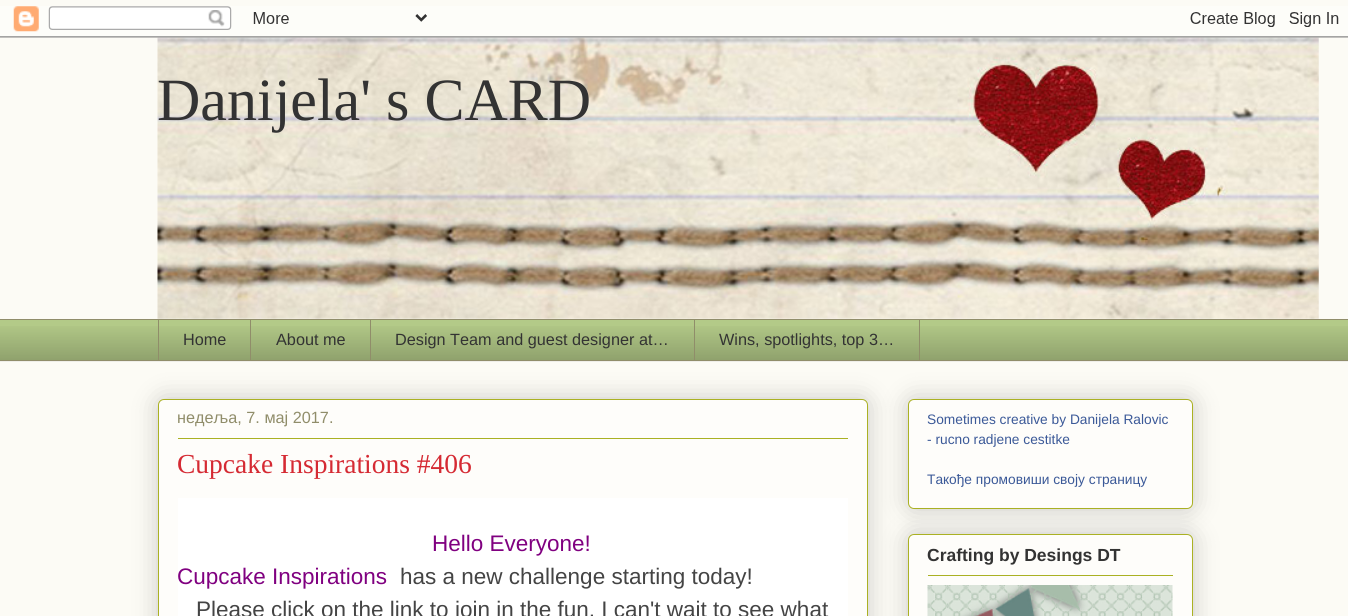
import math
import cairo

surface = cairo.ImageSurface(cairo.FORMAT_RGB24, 1348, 616)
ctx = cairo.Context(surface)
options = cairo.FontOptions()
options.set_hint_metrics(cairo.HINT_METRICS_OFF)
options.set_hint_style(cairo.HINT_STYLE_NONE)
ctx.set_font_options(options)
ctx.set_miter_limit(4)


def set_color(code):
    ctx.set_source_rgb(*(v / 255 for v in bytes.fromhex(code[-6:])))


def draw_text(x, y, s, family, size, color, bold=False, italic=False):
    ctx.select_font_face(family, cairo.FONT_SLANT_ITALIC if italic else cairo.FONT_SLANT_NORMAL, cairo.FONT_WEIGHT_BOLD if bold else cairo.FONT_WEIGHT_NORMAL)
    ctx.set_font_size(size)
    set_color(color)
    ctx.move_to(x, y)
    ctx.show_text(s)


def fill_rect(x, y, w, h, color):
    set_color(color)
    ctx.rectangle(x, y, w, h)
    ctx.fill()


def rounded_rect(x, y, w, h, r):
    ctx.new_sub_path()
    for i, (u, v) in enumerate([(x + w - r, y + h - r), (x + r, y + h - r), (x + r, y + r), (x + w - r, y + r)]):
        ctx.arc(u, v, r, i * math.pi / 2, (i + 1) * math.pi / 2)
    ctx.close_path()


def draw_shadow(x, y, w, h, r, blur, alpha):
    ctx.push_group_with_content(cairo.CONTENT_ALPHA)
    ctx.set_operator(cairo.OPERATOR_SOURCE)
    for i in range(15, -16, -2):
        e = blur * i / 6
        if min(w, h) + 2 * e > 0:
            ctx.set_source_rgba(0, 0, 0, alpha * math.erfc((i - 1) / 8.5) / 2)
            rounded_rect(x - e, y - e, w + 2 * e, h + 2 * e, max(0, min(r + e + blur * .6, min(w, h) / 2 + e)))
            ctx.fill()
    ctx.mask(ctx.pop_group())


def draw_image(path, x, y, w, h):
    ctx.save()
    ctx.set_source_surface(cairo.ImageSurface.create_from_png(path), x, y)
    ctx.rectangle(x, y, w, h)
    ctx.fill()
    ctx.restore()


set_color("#fcfbf5")
ctx.paint()
draw_image("assets/img2.png", 157, 37, 1162, 282)
draw_image("assets/img1.png", 0, 6, 1348, 32)
draw_text(157, 120, "Danijela' s CARD", "Liberation Serif", 60, "#333333")
fill_rect(0, 320, 1348, 40, "#b3ca88")
draw_image("assets/img3.png", 0, 326, 1348, 36)
fill_rect(0, 319, 1348, 1, "#908d6a")
fill_rect(158, 319, 1, 42, "#908d6a")
draw_text(183, 345, "Home", "Liberation Sans", 16.25, "#333333")
fill_rect(250, 319, 1, 42, "#908d6a")
draw_text(276, 345, "About me", "Liberation Sans", 16.25, "#333333")
fill_rect(370, 319, 1, 42, "#908d6a")
draw_text(395, 345, "Design Team and guest designer at…", "Liberation Sans", 16.25, "#333333")
ctx.rectangle(694.5, 319.5, 225, 41)
set_color("#908d6a")
ctx.set_line_width(1)
ctx.stroke()
draw_text(719, 345, "Wins, spotlights, top 3…", "Liberation Sans", 16.25, "#333333")
fill_rect(0, 360, 1348, 1, "#908d6a")
set_color("#000000")
draw_shadow(158, 399, 710, 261, 6, 12.5, 0.2)
set_color("#fefdfa")
rounded_rect(158.5, 399.5, 709, 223, 5.5)
ctx.fill_preserve()
set_color("#aab123")
ctx.stroke()
draw_text(177, 423, "недеља, 7. мај 2017.", "Liberation Sans", 16.25, "#908d6a")
fill_rect(178, 438, 670, 1, "#aab123")
draw_text(177, 473, "Cupcake Inspirations #406", "Liberation Serif", 27.5, "#d52a33")
fill_rect(178, 498, 670, 118, "#ffffff")
draw_text(432, 551, "Hello Everyone!", "Liberation Sans", 22.5, "#800080")
draw_text(177, 584, "Cupcake Inspirations", "Liberation Sans", 22.5, "#800080")
draw_text(400, 584, "has a new challenge starting today!", "Liberation Sans", 22.5, "#444444")
draw_text(196, 617, "Please click on the link to join in the fun, I can't wait to see what", "Liberation Sans", 22.5, "#444444")
set_color("#000000")
draw_shadow(908, 399, 285, 110, 6, 12.5, 0.2)
set_color("#fefdfa")
rounded_rect(908.5, 399.5, 284, 109, 5.5)
ctx.fill_preserve()
set_color("#aab123")
ctx.stroke()
draw_text(927, 424, "Sometimes creative by Danijela Ralovic", "Liberation Sans", 13.75, "#3b5998")
draw_text(927, 444, "- rucno radjene cestitke", "Liberation Sans", 13.75, "#3b5998")
draw_text(927, 484, "Такође промовиши своју страницу", "Liberation Sans", 13.75, "#3b5998")
set_color("#000000")
draw_shadow(908, 534, 285, 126, 6, 12.5, 0.2)
set_color("#fefdfa")
rounded_rect(908.5, 534.5, 284, 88, 5.5)
ctx.fill_preserve()
set_color("#aab123")
ctx.stroke()
draw_text(927, 561, "Crafting by Desings DT", "Liberation Sans", 17.5, "#333333", bold=True)
fill_rect(928, 575, 245, 1, "#aab123")
draw_image("assets/img4.png", 927, 585, 246, 31)
surface.write_to_png("output.png")
